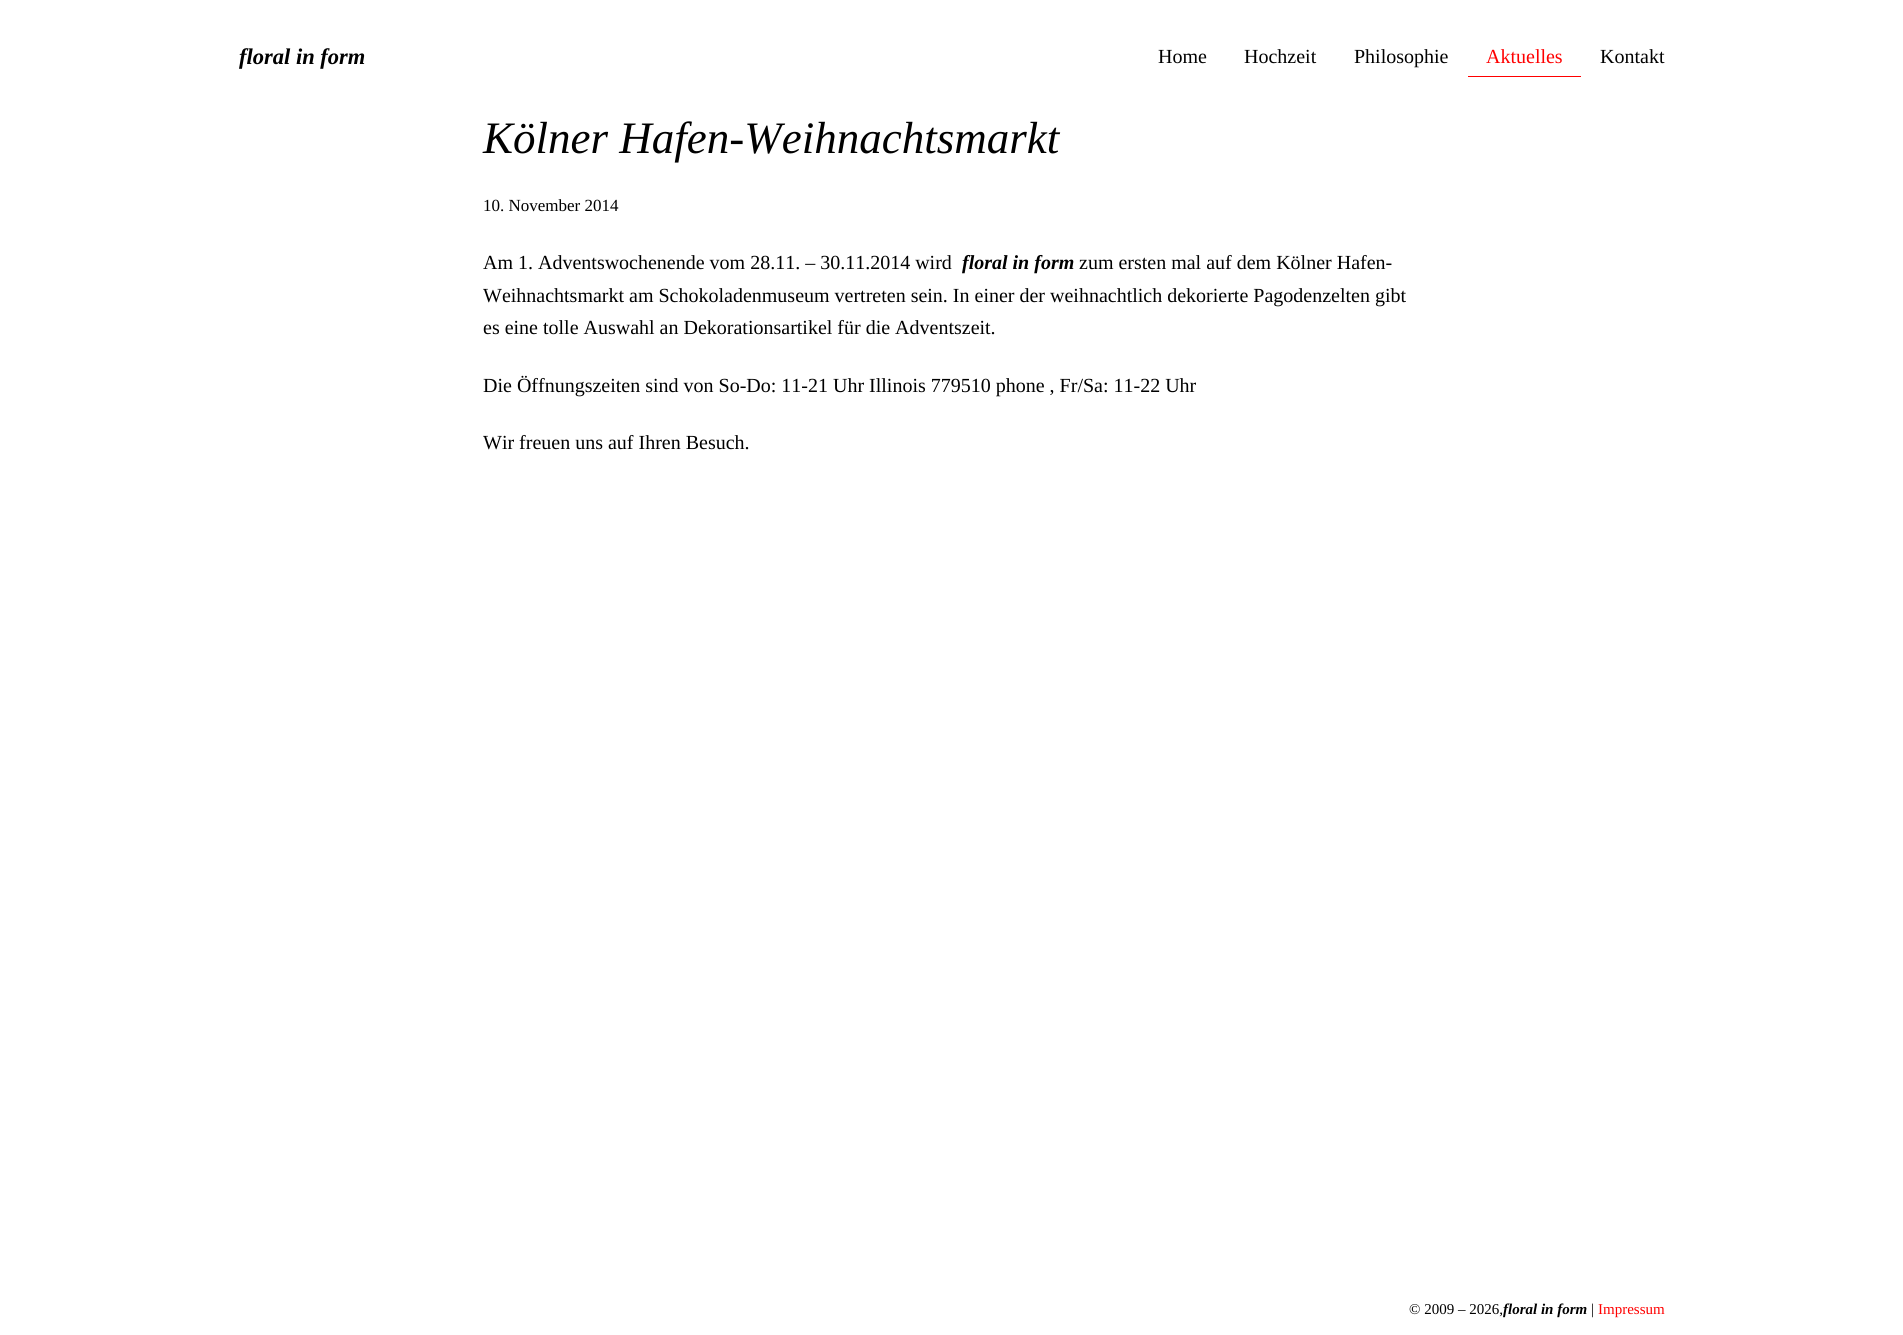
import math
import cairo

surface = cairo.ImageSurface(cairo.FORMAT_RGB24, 1903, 1335)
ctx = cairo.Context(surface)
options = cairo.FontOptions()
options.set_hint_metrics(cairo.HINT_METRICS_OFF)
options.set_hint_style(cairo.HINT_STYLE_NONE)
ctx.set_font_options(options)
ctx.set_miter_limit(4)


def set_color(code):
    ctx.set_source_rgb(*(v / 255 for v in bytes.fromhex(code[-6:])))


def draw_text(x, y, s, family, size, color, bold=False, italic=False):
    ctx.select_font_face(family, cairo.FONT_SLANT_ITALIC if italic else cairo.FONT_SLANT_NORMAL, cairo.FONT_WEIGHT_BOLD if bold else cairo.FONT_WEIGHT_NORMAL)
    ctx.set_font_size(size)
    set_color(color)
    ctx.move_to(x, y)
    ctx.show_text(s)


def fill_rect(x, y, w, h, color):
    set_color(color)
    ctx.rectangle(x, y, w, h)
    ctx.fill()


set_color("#ffffff")
ctx.paint()
draw_text(239, 64, "floral in form", "Liberation Serif", 22.5, "#000000", bold=True, italic=True)
draw_text(1158, 63, "Home", "Liberation Serif", 20, "#000000")
draw_text(1244, 63, "Hochzeit", "Liberation Serif", 20, "#000000")
draw_text(1354, 63, "Philosophie", "Liberation Serif", 20, "#000000")
fill_rect(1468, 76, 113, 1, "#ff0000")
draw_text(1486, 63, "Aktuelles", "Liberation Serif", 20, "#ff0000")
draw_text(1600, 63, "Kontakt", "Liberation Serif", 20, "#000000")
draw_text(483, 153, "Kölner Hafen-Weihnachtsmarkt", "Liberation Serif", 45, "#000000", italic=True)
draw_text(483, 211, "10. November 2014", "Liberation Serif", 17, "#000000")
draw_text(483, 269, "Am 1. Adventswochenende vom 28.11. – 30.11.2014 wird", "Liberation Serif", 20, "#000000")
draw_text(962, 269, "floral in form", "Liberation Serif", 20, "#000000", bold=True, italic=True)
draw_text(1079, 269, "zum ersten mal auf dem Kölner Hafen-", "Liberation Serif", 20, "#000000")
draw_text(483, 302, "Weihnachtsmarkt am Schokoladenmuseum vertreten sein. In einer der weihnachtlich dekorierte Pagodenzelten gibt", "Liberation Serif", 20, "#000000")
draw_text(483, 334, "es eine tolle Auswahl an Dekorationsartikel für die Adventszeit.", "Liberation Serif", 20, "#000000")
draw_text(483, 392, "Die Öffnungszeiten sind von So-Do: 11-21 Uhr Illinois 779510 phone , Fr/Sa: 11-22 Uhr", "Liberation Serif", 20, "#000000")
draw_text(483, 449, "Wir freuen uns auf Ihren Besuch.", "Liberation Serif", 20, "#000000")
draw_text(1409, 1314, "© 2009 – 2026,", "Liberation Serif", 15, "#000000")
draw_text(1503, 1314, "floral in form", "Liberation Serif", 15, "#000000", bold=True, italic=True)
draw_text(1591, 1314, "|", "Liberation Serif", 15, "#000000")
draw_text(1598, 1314, "Impressum", "Liberation Serif", 15, "#ff0000")
surface.write_to_png("output.png")
